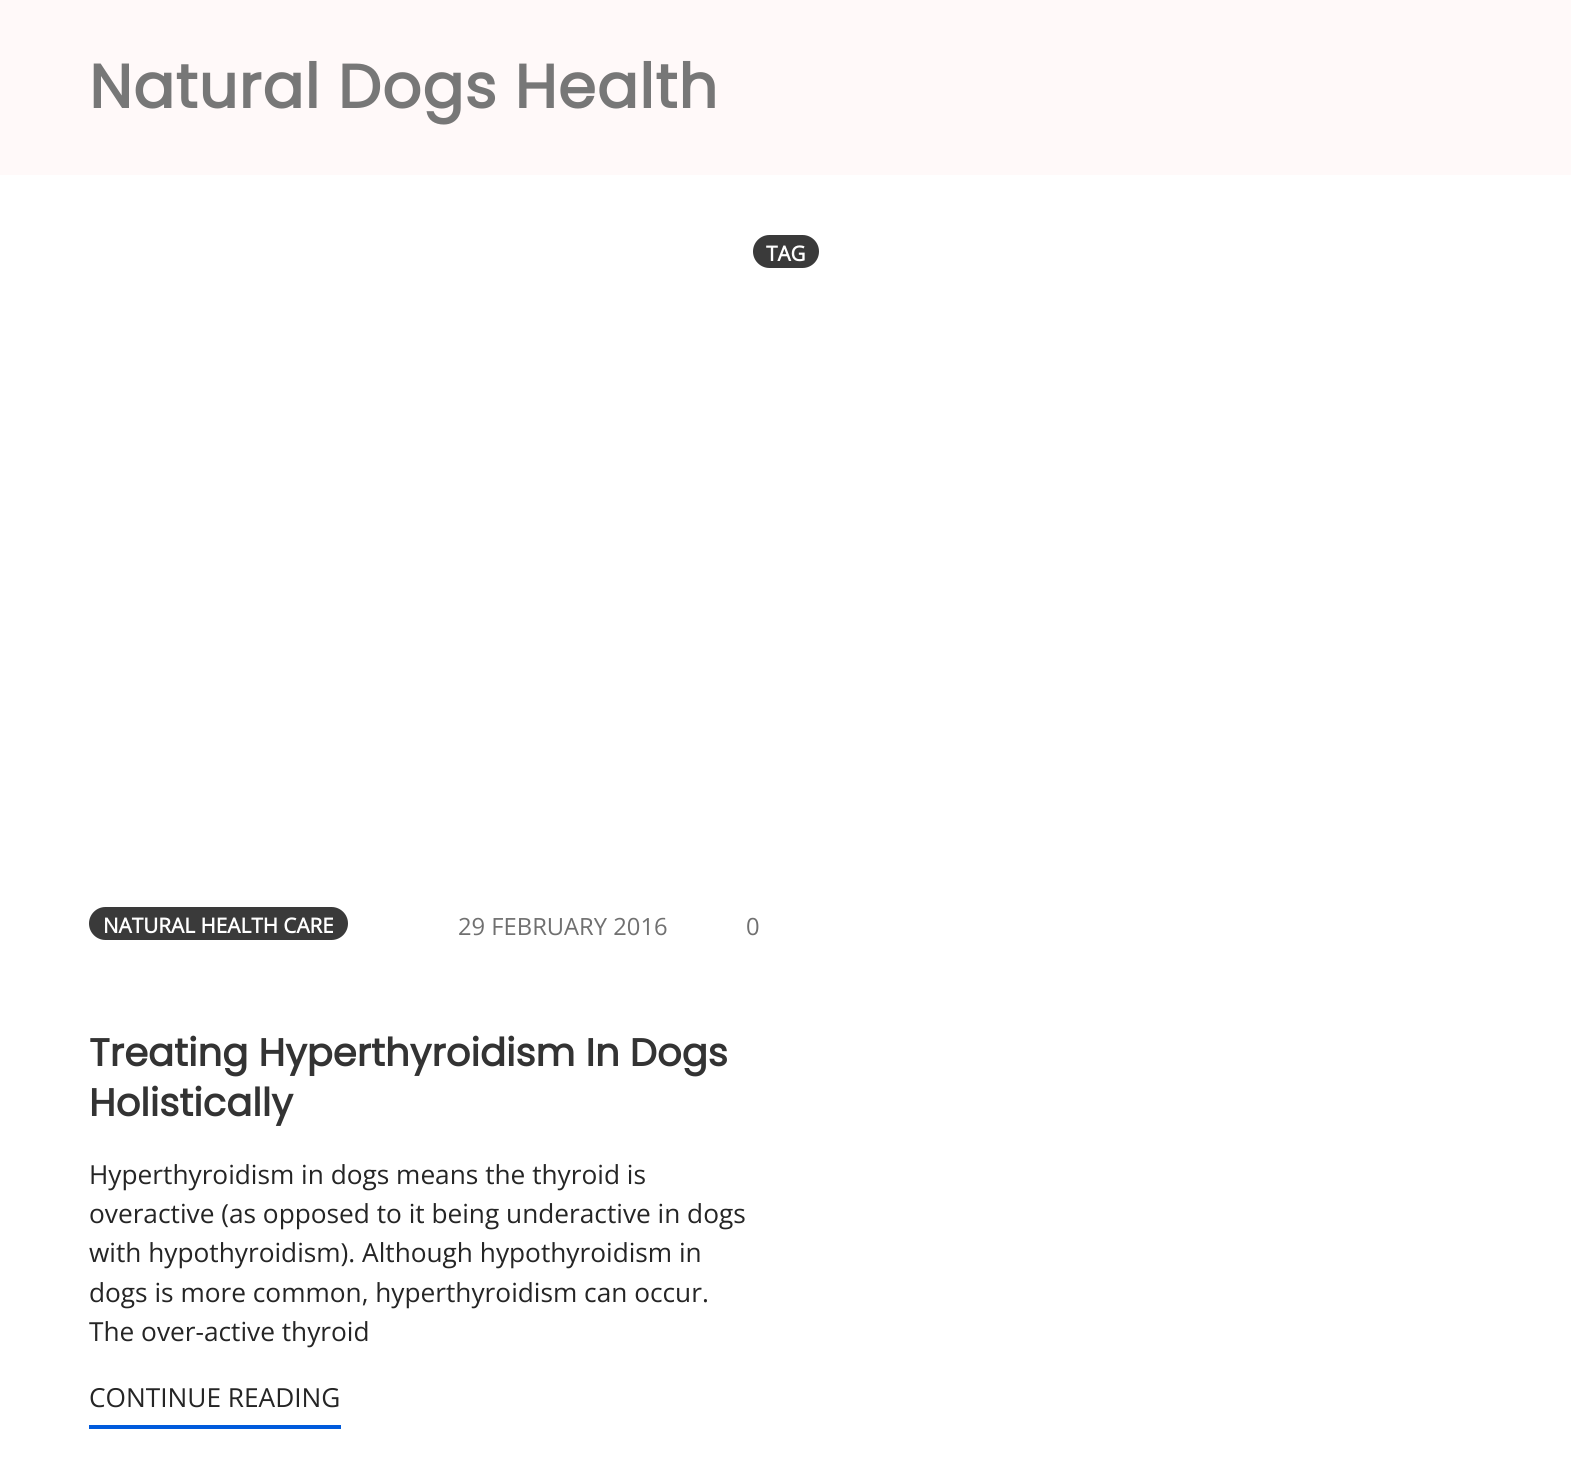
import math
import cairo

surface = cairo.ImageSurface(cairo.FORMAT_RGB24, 1571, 1476)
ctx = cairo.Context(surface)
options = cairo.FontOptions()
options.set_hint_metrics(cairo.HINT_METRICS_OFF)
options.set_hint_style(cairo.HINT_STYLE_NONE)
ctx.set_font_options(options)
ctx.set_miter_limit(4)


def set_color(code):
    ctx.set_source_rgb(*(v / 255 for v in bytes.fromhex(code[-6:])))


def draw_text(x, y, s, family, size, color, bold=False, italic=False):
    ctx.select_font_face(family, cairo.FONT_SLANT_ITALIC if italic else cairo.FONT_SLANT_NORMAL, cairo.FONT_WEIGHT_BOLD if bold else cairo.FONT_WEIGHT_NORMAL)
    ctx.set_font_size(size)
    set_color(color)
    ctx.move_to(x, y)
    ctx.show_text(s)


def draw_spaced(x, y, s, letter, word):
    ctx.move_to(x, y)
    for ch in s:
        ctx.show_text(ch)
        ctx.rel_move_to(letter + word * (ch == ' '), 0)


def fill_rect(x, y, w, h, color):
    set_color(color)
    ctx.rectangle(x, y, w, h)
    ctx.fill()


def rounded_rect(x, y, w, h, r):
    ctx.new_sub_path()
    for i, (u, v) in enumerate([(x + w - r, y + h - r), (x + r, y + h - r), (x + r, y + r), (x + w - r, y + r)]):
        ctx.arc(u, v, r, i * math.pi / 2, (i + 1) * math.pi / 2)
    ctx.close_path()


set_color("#ffffff")
ctx.paint()
fill_rect(0, 0, 1571, 175, "#fff9f9")
ctx.select_font_face("Poppins", cairo.FONT_SLANT_NORMAL, cairo.FONT_WEIGHT_BOLD)
ctx.set_font_size(61.25)
set_color("#777777")
draw_spaced(89, 108, "Natural Dogs Health", 0.9, 0)
set_color("#3a3a3a")
rounded_rect(753, 235, 66, 33, 16.5)
ctx.fill()
draw_text(766, 261, "TAG", "Open Sans", 20.75, "#ffffff", bold=True)
set_color("#3a3a3a")
rounded_rect(89, 907, 259, 33, 16.5)
ctx.fill()
draw_text(103, 933, "NATURAL HEALTH CARE", "Open Sans", 20.75, "#ffffff", bold=True)
draw_text(458, 935, "29 FEBRUARY 2016", "Open Sans", 23.75, "#707070")
draw_text(746, 935, "0", "Open Sans", 23.75, "#707070")
draw_text(89, 1066, "Treating Hyperthyroidism In Dogs", "Poppins", 38.5, "#333333", bold=True)
draw_text(89, 1116, "Holistically", "Poppins", 38.5, "#333333", bold=True)
draw_text(89, 1184, "Hyperthyroidism in dogs means the thyroid is", "Open Sans", 26.25, "#252525")
draw_text(89, 1223, "overactive (as opposed to it being underactive in dogs", "Open Sans", 26.25, "#252525")
draw_text(89, 1262, "with hypothyroidism). Although hypothyroidism in", "Open Sans", 26.25, "#252525")
draw_text(89, 1302, "dogs is more common, hyperthyroidism can occur.", "Open Sans", 26.25, "#252525")
draw_text(89, 1341, "The over-active thyroid", "Open Sans", 26.25, "#252525")
draw_text(89, 1407, "CONTINUE READING", "Open Sans", 26.25, "#252525")
fill_rect(89, 1425, 252, 4, "#005bdc")
surface.write_to_png("output.png")
